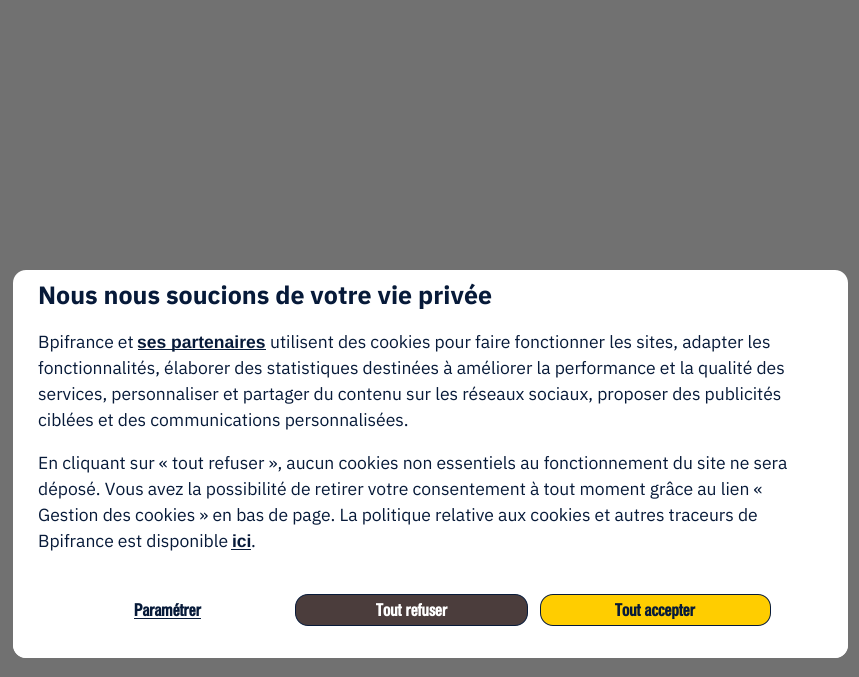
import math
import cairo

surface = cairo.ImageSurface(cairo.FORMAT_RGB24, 859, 677)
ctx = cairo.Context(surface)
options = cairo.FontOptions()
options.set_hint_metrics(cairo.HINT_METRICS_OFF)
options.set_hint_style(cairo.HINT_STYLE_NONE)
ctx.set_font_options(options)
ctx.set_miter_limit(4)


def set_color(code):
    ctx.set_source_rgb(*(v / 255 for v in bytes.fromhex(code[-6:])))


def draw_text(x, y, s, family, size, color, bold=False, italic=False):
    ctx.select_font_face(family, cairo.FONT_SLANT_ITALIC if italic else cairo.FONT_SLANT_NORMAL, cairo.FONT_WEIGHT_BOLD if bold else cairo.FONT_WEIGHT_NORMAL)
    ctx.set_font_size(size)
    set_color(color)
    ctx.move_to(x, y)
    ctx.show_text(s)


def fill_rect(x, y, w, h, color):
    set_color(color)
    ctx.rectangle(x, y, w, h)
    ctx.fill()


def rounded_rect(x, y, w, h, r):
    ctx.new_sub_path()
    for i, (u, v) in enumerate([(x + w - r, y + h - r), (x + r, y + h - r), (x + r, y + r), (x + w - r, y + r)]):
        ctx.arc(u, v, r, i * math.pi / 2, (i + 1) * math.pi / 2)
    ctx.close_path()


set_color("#717171")
ctx.paint()
set_color("#ffffff")
rounded_rect(13, 270, 835, 388, 13)
ctx.fill()
draw_text(38, 304, "Nous nous soucions de votre vie privée", "IBM Plex Sans", 25, "#071a39", bold=True)
draw_text(38, 348, "Bpifrance et", "IBM Plex Sans", 17.5, "#071a39")
fill_rect(138, 349, 128, 1, "#071a39")
draw_text(137, 348, "ses partenaires", "Liberation Sans", 17.5, "#071a39", bold=True)
draw_text(270, 348, "utilisent des cookies pour faire fonctionner les sites, adapter les", "IBM Plex Sans", 17.5, "#071a39")
draw_text(38, 374, "fonctionnalités, élaborer des statistiques destinées à améliorer la performance et la qualité des", "IBM Plex Sans", 17.5, "#071a39")
draw_text(38, 400, "services, personnaliser et partager du contenu sur les réseaux sociaux, proposer des publicités", "IBM Plex Sans", 17.5, "#071a39")
draw_text(38, 426, "ciblées et des communications personnalisées.", "IBM Plex Sans", 17.5, "#071a39")
draw_text(38, 469, "En cliquant sur « tout refuser », aucun cookies non essentiels au fonctionnement du site ne sera", "IBM Plex Sans", 17.5, "#071a39")
draw_text(38, 495, "déposé. Vous avez la possibilité de retirer votre consentement à tout moment grâce au lien «", "IBM Plex Sans", 17.5, "#071a39")
draw_text(38, 521, "Gestion des cookies » en bas de page. La politique relative aux cookies et autres traceurs de", "IBM Plex Sans", 17.5, "#071a39")
draw_text(38, 547, "Bpifrance est disponible", "IBM Plex Sans", 17.5, "#071a39")
draw_text(232, 547, "ici", "Liberation Sans", 17.5, "#071a39", bold=True)
fill_rect(231, 549, 20, 1, "#071a39")
draw_text(251, 547, ".", "IBM Plex Sans", 17.5, "#071a39")
gradient = cairo.LinearGradient(430, 658, 430, 587)
gradient.add_color_stop_rgba(0.6, 1, 1, 1, 1)
gradient.add_color_stop_rgba(1, 1, 1, 1, 0)
ctx.set_source(gradient)
ctx.new_path()
ctx.move_to(13, 588)
ctx.line_to(848, 588)
ctx.line_to(848, 645)
ctx.curve_to(848, 652, 842, 658, 835, 658)
ctx.line_to(26, 658)
ctx.curve_to(19, 658, 13, 652, 13, 645)
ctx.close_path()
ctx.fill()
draw_text(134, 616, "Paramétrer", "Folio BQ", 17.5, "#071a39", bold=True)
fill_rect(134, 618, 67, 1, "#071a39")
set_color("#4b3d3c")
rounded_rect(295.5, 594.5, 232, 31, 12.5)
ctx.fill_preserve()
set_color("#071a39")
ctx.set_line_width(1)
ctx.stroke()
draw_text(376, 616, "Tout refuser", "Folio BQ", 17.5, "#ffffff", bold=True)
set_color("#ffcd00")
rounded_rect(540.5, 594.5, 230, 31, 12.5)
ctx.fill_preserve()
set_color("#071a39")
ctx.stroke()
draw_text(615, 616, "Tout accepter", "Folio BQ", 17.5, "#071a39", bold=True)
surface.write_to_png("output.png")
